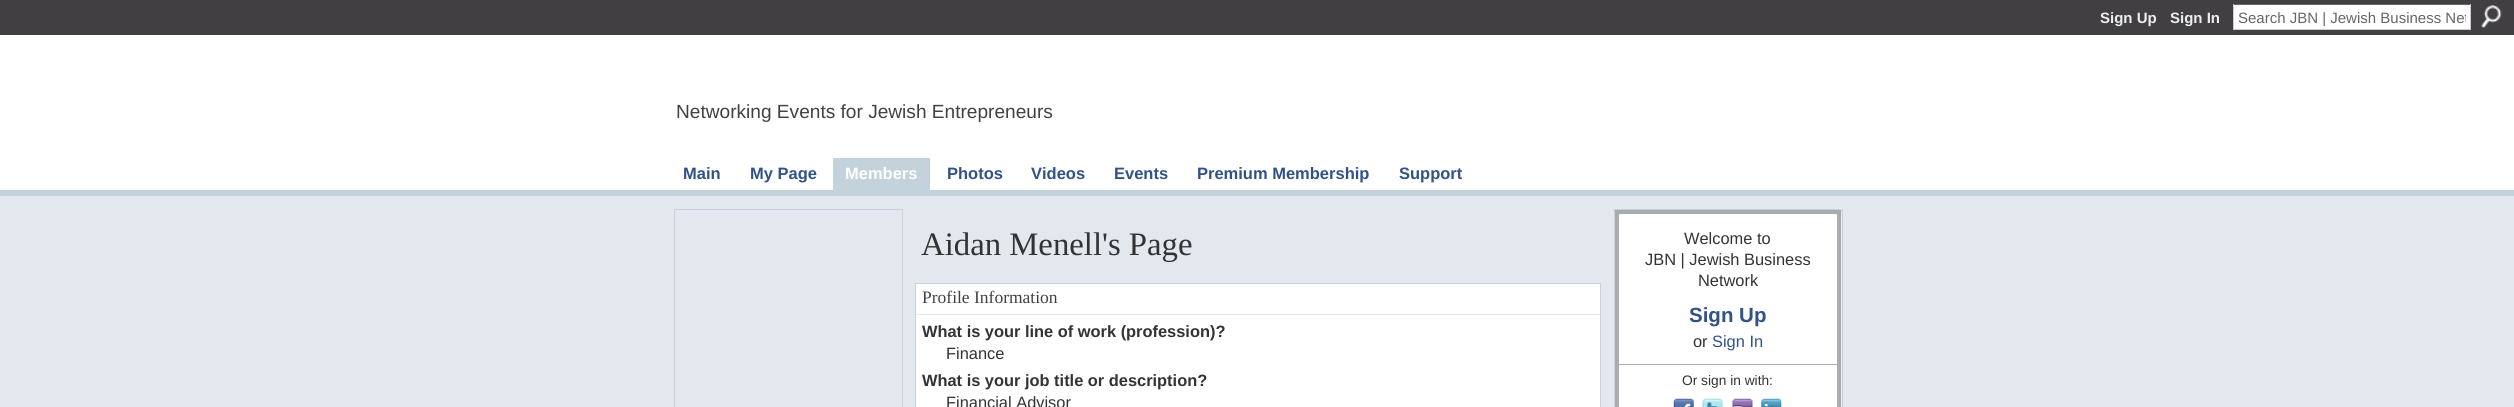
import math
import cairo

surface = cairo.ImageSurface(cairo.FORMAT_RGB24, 2514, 407)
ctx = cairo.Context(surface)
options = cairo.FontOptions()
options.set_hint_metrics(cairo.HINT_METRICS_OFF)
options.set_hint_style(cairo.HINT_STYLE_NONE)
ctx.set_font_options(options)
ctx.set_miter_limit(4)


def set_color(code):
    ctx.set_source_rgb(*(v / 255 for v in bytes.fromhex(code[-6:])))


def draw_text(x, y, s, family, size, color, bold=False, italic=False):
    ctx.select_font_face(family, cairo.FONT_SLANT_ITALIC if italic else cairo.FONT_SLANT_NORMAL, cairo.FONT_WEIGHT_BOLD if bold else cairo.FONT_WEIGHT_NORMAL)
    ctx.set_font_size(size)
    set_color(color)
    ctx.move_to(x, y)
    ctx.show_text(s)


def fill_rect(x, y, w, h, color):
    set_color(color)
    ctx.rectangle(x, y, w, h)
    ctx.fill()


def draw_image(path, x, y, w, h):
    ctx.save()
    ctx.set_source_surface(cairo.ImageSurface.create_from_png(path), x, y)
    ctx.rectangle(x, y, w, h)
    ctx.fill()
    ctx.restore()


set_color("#e3e8ee")
ctx.paint()
fill_rect(0, 0, 2514, 35, "#413f42")
draw_text(2100, 23, "Sign Up", "Liberation Sans", 15, "#eeeeee", bold=True)
draw_text(2170, 23, "Sign In", "Liberation Sans", 15, "#eeeeee", bold=True)
fill_rect(2234, 5, 236, 24, "#ffffff")
fill_rect(2233, 4, 238, 1, "#666666")
fill_rect(2470, 4, 1, 26, "#cccccc")
fill_rect(2233, 29, 238, 1, "#cccccc")
fill_rect(2233, 4, 1, 26, "#cccccc")
ctx.save()
ctx.rectangle(2238, 9, 228, 17)
ctx.clip()
draw_text(2238, 23, "Search JBN | Jewish Business Net", "Liberation Sans", 15, "#666666")
ctx.restore()
draw_image("assets/img1.png", 2481, 5, 21, 23)
fill_rect(0, 35, 2514, 155, "#ffffff")
fill_rect(0, 190, 2514, 6, "#c4d2db")
draw_text(676, 118, "Networking Events for Jewish Entrepreneurs", "Liberation Sans", 19.1, "#414143")
draw_text(683, 179, "Main", "Liberation Sans", 16.5, "#315288", bold=True)
draw_text(750, 179, "My Page", "Liberation Sans", 16.5, "#315288", bold=True)
fill_rect(833, 158, 97, 32, "#c4d2db")
draw_text(845, 179, "Members", "Liberation Sans", 16.5, "#ffffff", bold=True)
draw_text(947, 179, "Photos", "Liberation Sans", 16.5, "#315288", bold=True)
draw_text(1031, 179, "Videos", "Liberation Sans", 16.5, "#315288", bold=True)
draw_text(1114, 179, "Events", "Liberation Sans", 16.5, "#315288", bold=True)
draw_text(1197, 179, "Premium Membership", "Liberation Sans", 16.5, "#315288", bold=True)
draw_text(1399, 179, "Support", "Liberation Sans", 16.5, "#315288", bold=True)
ctx.rectangle(674.5, 209.5, 228, 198)
set_color("#c9d1de")
ctx.set_line_width(1)
ctx.stroke()
draw_text(921, 255, "Aidan Menell's Page", "Liberation Serif", 32.75, "#333333")
ctx.rectangle(915.5, 283.5, 685, 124)
set_color("#c9d1de")
ctx.stroke()
fill_rect(916, 284, 684, 30, "#ffffff")
fill_rect(916, 314, 684, 1, "#e7e7e7")
draw_text(922, 303, "Profile Information", "Liberation Serif", 17.5, "#414143")
fill_rect(916, 315, 684, 92, "#ffffff")
draw_text(922, 337, "What is your line of work (profession)?", "Liberation Sans", 16.4, "#333333", bold=True)
draw_text(946, 359, "Finance", "Liberation Sans", 16.4, "#333333")
draw_text(922, 386, "What is your job title or description?", "Liberation Sans", 16.4, "#333333", bold=True)
draw_text(946, 408, "Financial Advisor", "Liberation Sans", 16.4, "#333333")
ctx.rectangle(1614.5, 209.5, 228, 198)
set_color("#c9d1de")
ctx.stroke()
set_color("#ffffff")
ctx.rectangle(1617, 212, 222, 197)
ctx.fill_preserve()
set_color("#a8acb0")
ctx.set_line_width(4)
ctx.stroke()
draw_text(1684, 244, "Welcome to", "Liberation Sans", 16.4, "#333333")
draw_text(1645, 265, "JBN | Jewish Business", "Liberation Sans", 16.4, "#333333")
draw_text(1698, 286, "Network", "Liberation Sans", 16.4, "#333333")
draw_text(1689, 322, "Sign Up", "Liberation Sans", 20.5, "#315288", bold=True)
draw_text(1693, 347, "or", "Liberation Sans", 16.4, "#333333")
draw_text(1712, 347, "Sign In", "Liberation Sans", 16.4, "#315288")
fill_rect(1619, 364, 219, 1, "#a8acb0")
draw_text(1682, 385, "Or sign in with:", "Liberation Sans", 13.75, "#333333")
draw_image("assets/img2.png", 1673, 398, 21, 9)
draw_image("assets/img3.png", 1702, 398, 21, 9)
draw_image("assets/img4.png", 1732, 398, 21, 9)
draw_image("assets/img5.png", 1761, 398, 21, 9)
surface.write_to_png("output.png")
